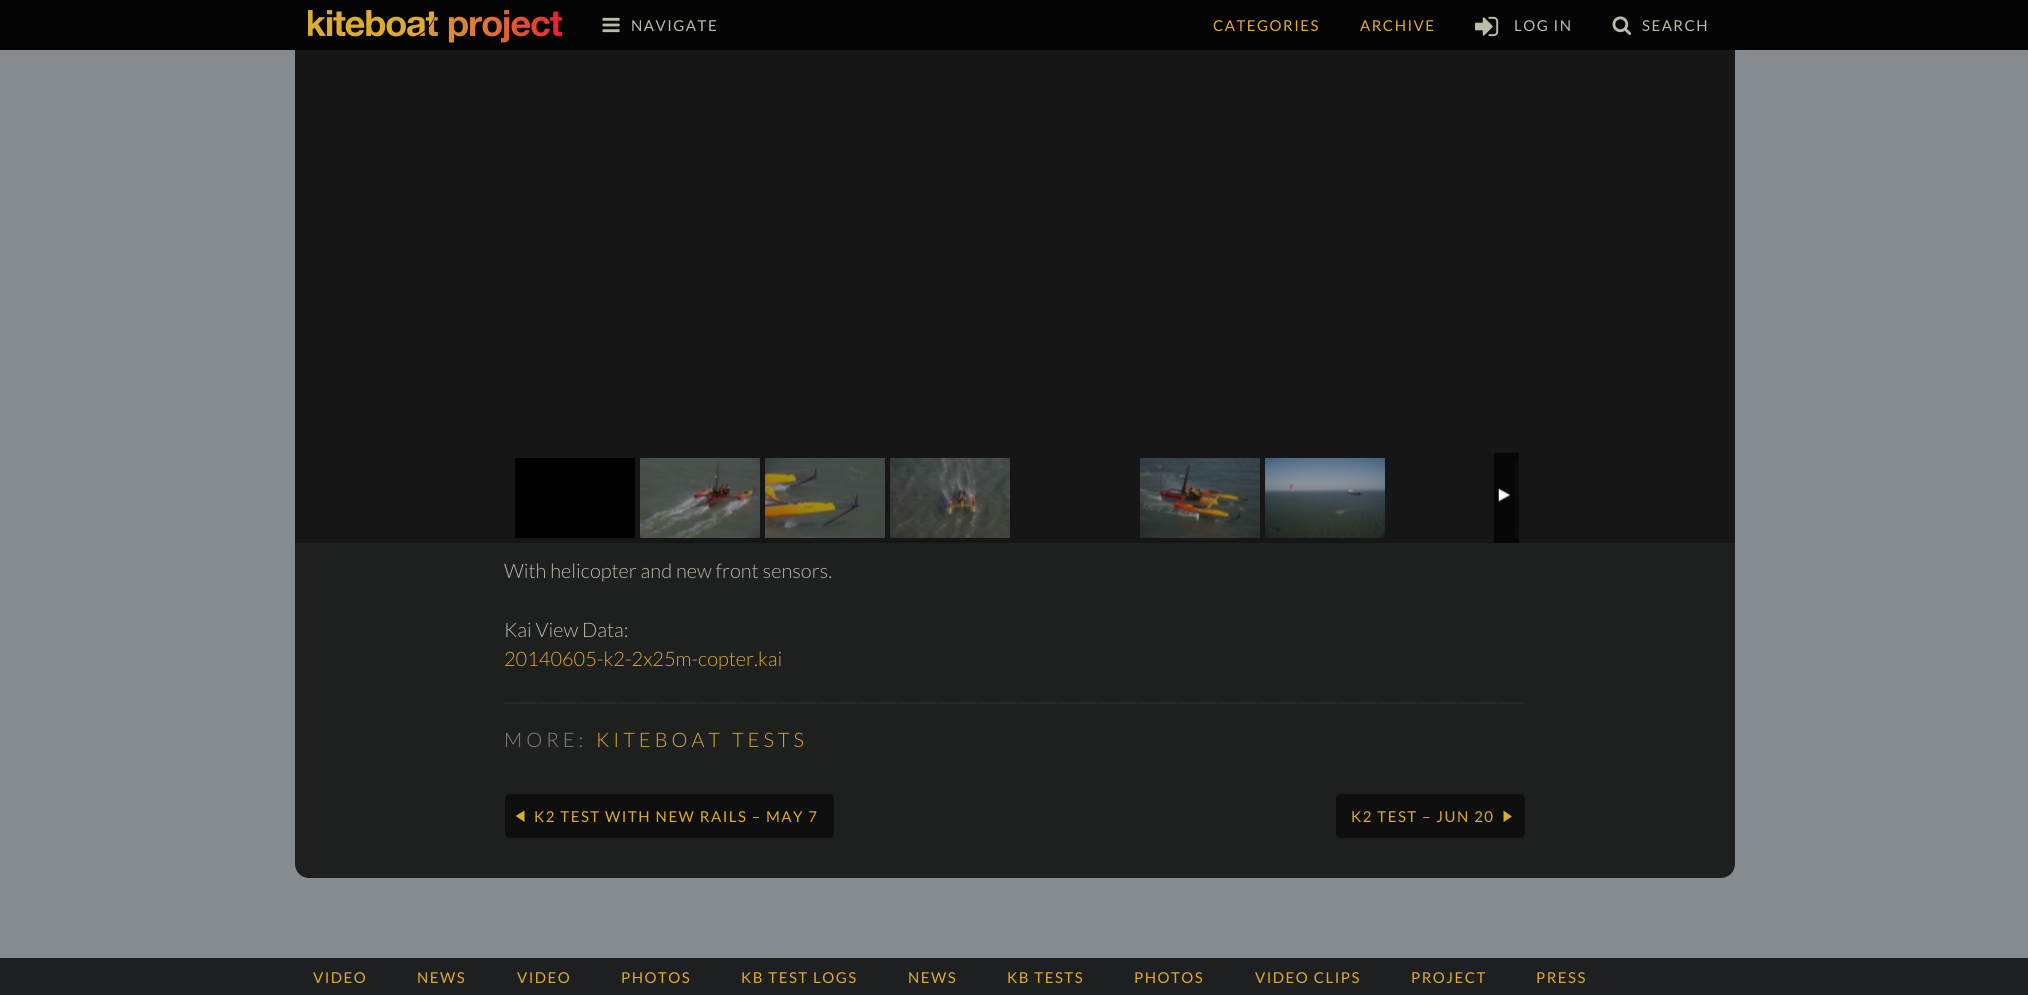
import math
import cairo

surface = cairo.ImageSurface(cairo.FORMAT_RGB24, 2028, 995)
ctx = cairo.Context(surface)
options = cairo.FontOptions()
options.set_hint_metrics(cairo.HINT_METRICS_OFF)
options.set_hint_style(cairo.HINT_STYLE_NONE)
ctx.set_font_options(options)
ctx.set_miter_limit(4)


def set_color(code):
    ctx.set_source_rgb(*(v / 255 for v in bytes.fromhex(code[-6:])))


def draw_text(x, y, s, family, size, color, bold=False, italic=False):
    ctx.select_font_face(family, cairo.FONT_SLANT_ITALIC if italic else cairo.FONT_SLANT_NORMAL, cairo.FONT_WEIGHT_BOLD if bold else cairo.FONT_WEIGHT_NORMAL)
    ctx.set_font_size(size)
    set_color(color)
    ctx.move_to(x, y)
    ctx.show_text(s)


def draw_spaced(x, y, s, letter, word):
    ctx.move_to(x, y)
    for ch in s:
        ctx.show_text(ch)
        ctx.rel_move_to(letter + word * (ch == ' '), 0)


def fill_rect(x, y, w, h, color):
    set_color(color)
    ctx.rectangle(x, y, w, h)
    ctx.fill()


def rounded_rect(x, y, w, h, r):
    ctx.new_sub_path()
    for i, (u, v) in enumerate([(x + w - r, y + h - r), (x + r, y + h - r), (x + r, y + r), (x + w - r, y + r)]):
        ctx.arc(u, v, r, i * math.pi / 2, (i + 1) * math.pi / 2)
    ctx.close_path()


def draw_image(path, x, y, w, h):
    ctx.save()
    ctx.set_source_surface(cairo.ImageSurface.create_from_png(path), x, y)
    ctx.rectangle(x, y, w, h)
    ctx.fill()
    ctx.restore()


set_color("#878c91")
ctx.paint()
set_color("#1e1f1f")
rounded_rect(295, -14, 1440, 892, 14)
ctx.fill()
fill_rect(0, 0, 2028, 50, "#040404")
draw_image("assets/img1.png", 308, 10, 255, 33)
draw_image("assets/img2.png", 602, 17, 18, 16)
ctx.select_font_face("Lato")
ctx.set_font_size(15)
set_color("#bbbbaa")
draw_spaced(631, 31, "NAVIGATE", 1.5, 0)
set_color("#ddaa33")
draw_spaced(1213, 31, "CATEGORIES", 1.5, 0)
draw_spaced(1360, 31, "ARCHIVE", 1.5, 0)
draw_image("assets/img3.png", 1475, 16, 24, 21)
set_color("#bbbbaa")
draw_spaced(1514, 31, "LOG IN", 1.5, 0)
draw_image("assets/img4.png", 1612, 16, 20, 19)
draw_spaced(1642, 31, "SEARCH", 1.5, 0)
fill_rect(295, 50, 1440, 493, "#161616")
fill_rect(1494, 453, 25, 90, "#060606")
fill_rect(515, 458, 120, 80, "#000000")
draw_image("assets/img5.png", 640, 458, 120, 80)
draw_image("assets/img6.png", 765, 458, 120, 80)
draw_image("assets/img7.png", 890, 458, 120, 80)
draw_image("assets/img8.png", 1140, 458, 120, 80)
draw_image("assets/img9.png", 1265, 458, 120, 80)
draw_image("assets/img10.png", 1515, 458, 4, 80)
draw_image("assets/img11.png", 1498, 488, 13, 14)
draw_text(504, 578, "With helicopter and new front sensors.", "Lato Light", 20, "#bbbbaa")
draw_text(504, 637, "Kai View Data:", "Lato Light", 20, "#bbbbaa")
draw_text(504, 666, "20140605-k2-2x25m-copter.kai", "Lato Light", 20, "#ddaa33")
ctx.new_path()
ctx.move_to(505, 703)
ctx.line_to(1525, 703)
set_color("#444433")
ctx.set_line_width(1.2)
ctx.set_dash([1.25, 1.25])
ctx.stroke()
set_color("#888877")
draw_spaced(504, 747, "MORE:", 4, 0)
set_color("#ddaa33")
draw_spaced(596, 747, "KITEBOAT TESTS", 4, 0)
set_color("#0e0e0e")
rounded_rect(505, 794, 329, 44, 5)
ctx.fill()
set_color("#ddaa33")
ctx.new_path()
ctx.move_to(524.5, 822)
ctx.line_to(515.5, 816)
ctx.line_to(524.5, 810.5)
ctx.close_path()
ctx.fill()
ctx.select_font_face("Lato")
ctx.set_font_size(15)
draw_spaced(534, 822, "K2 TEST WITH NEW RAILS – MAY 7", 1.5, 0)
set_color("#0e0e0e")
rounded_rect(1336, 794, 189, 44, 5)
ctx.fill()
set_color("#ddaa33")
draw_spaced(1351, 822, "K2 TEST – JUN 20", 1.5, 0)
ctx.new_path()
ctx.move_to(1503.5, 810.5)
ctx.line_to(1512, 816.5)
ctx.line_to(1503.5, 822)
ctx.close_path()
ctx.fill()
fill_rect(0, 958, 2028, 37, "#1e1f20")
set_color("#ddaa33")
draw_spaced(313, 983, "VIDEO", 1.5, 0)
draw_spaced(417, 983, "NEWS", 1.5, 0)
draw_spaced(517, 983, "VIDEO", 1.5, 0)
draw_spaced(621, 983, "PHOTOS", 1.5, 0)
draw_spaced(741, 983, "KB TEST LOGS", 1.5, 0)
draw_spaced(908, 983, "NEWS", 1.5, 0)
draw_spaced(1007, 983, "KB TESTS", 1.5, 0)
draw_spaced(1134, 983, "PHOTOS", 1.5, 0)
draw_spaced(1255, 983, "VIDEO CLIPS", 1.5, 0)
draw_spaced(1411, 983, "PROJECT", 1.5, 0)
draw_spaced(1536, 983, "PRESS", 1.5, 0)
surface.write_to_png("output.png")
